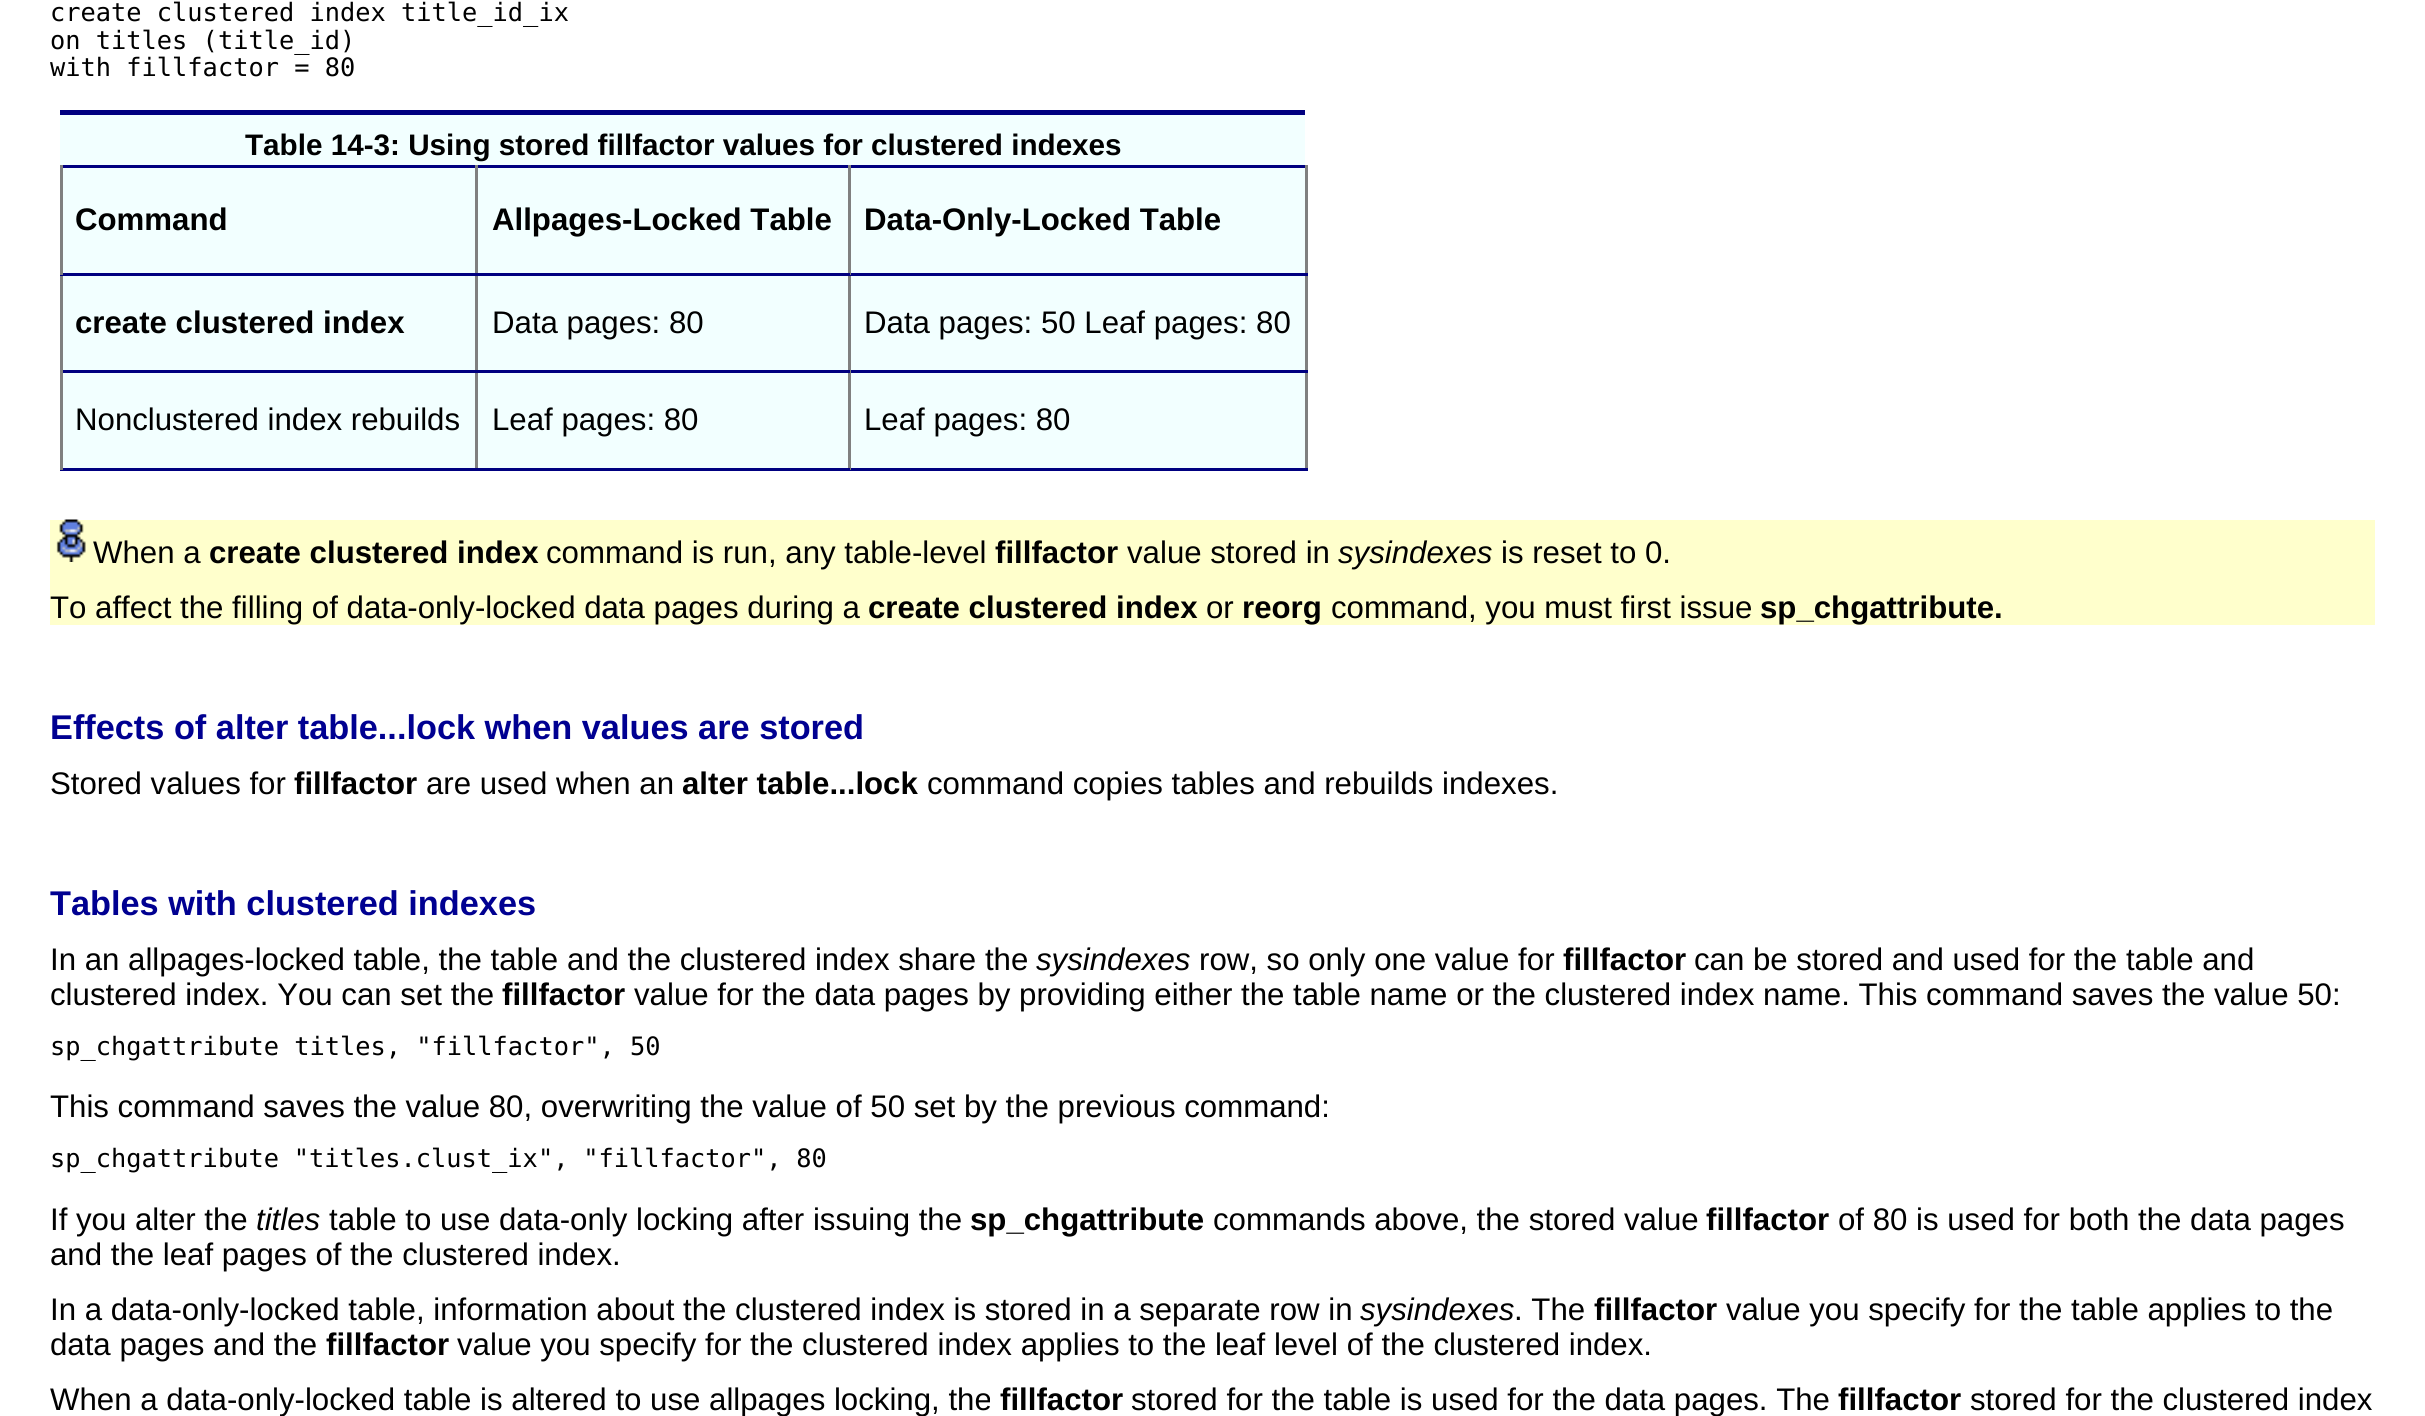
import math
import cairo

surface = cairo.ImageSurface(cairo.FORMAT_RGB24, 2425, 1416)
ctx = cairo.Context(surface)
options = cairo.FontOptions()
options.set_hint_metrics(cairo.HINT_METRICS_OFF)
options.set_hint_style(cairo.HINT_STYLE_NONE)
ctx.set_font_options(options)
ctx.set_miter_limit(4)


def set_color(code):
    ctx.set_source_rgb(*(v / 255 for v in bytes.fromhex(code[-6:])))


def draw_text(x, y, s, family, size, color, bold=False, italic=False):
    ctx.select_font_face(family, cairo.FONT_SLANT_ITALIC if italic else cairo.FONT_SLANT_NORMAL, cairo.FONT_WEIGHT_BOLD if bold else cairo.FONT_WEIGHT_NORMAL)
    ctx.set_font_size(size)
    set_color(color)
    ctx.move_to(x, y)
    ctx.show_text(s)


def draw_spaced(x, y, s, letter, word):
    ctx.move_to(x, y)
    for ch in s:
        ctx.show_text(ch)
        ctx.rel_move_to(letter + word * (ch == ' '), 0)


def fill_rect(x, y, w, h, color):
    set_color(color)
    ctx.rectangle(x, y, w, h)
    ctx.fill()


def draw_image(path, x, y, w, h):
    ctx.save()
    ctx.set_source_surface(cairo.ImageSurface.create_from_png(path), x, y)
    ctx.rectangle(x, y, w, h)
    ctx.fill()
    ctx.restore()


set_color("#ffffff")
ctx.paint()
draw_text(50, 21, "create clustered index title_id_ix", "DejaVu Sans Mono", 25.35, "#000000")
draw_text(50, 49, "on titles (title_id)", "DejaVu Sans Mono", 25.35, "#000000")
draw_text(50, 76, "with fillfactor = 80", "DejaVu Sans Mono", 25.35, "#000000")
fill_rect(60, 115, 1245, 353, "#f2ffff")
fill_rect(60, 110, 1245, 5, "#000080")
draw_text(245, 155, "Table 14-3: Using stored fillfactor values for clustered indexes", "Liberation Sans", 29.65, "#000000", bold=True)
fill_rect(60, 165, 1248, 3, "#000080")
fill_rect(1305, 273, 3, 197, "#808080")
fill_rect(1305, 165, 3, 110, "#808080")
fill_rect(848, 468, 460, 3, "#000080")
fill_rect(848, 370, 3, 100, "#808080")
fill_rect(848, 370, 460, 3, "#000080")
fill_rect(848, 273, 3, 100, "#808080")
fill_rect(848, 273, 460, 3, "#000080")
fill_rect(848, 165, 3, 110, "#808080")
fill_rect(475, 468, 375, 3, "#000080")
fill_rect(475, 370, 3, 100, "#808080")
fill_rect(475, 370, 375, 3, "#000080")
fill_rect(475, 273, 3, 100, "#808080")
fill_rect(475, 273, 375, 3, "#000080")
fill_rect(475, 165, 3, 110, "#808080")
fill_rect(60, 468, 418, 3, "#000080")
fill_rect(60, 370, 3, 100, "#808080")
fill_rect(60, 370, 418, 3, "#000080")
fill_rect(60, 273, 3, 100, "#808080")
fill_rect(60, 273, 418, 3, "#000080")
fill_rect(60, 165, 3, 110, "#808080")
draw_text(75, 230, "Command", "Liberation Sans", 31.2, "#000000", bold=True)
draw_text(492, 230, "Allpages-Locked Table", "Liberation Sans", 31.2, "#000000", bold=True)
draw_text(864, 230, "Data-Only-Locked Table", "Liberation Sans", 31.2, "#000000", bold=True)
draw_text(75, 333, "create clustered index", "Liberation Sans", 31.2, "#000000", bold=True)
draw_text(492, 333, "Data pages: 80", "Liberation Sans", 31.2, "#000000")
draw_text(864, 333, "Data pages: 50 Leaf pages: 80", "Liberation Sans", 31.2, "#000000")
draw_text(75, 430, "Nonclustered index rebuilds", "Liberation Sans", 31.2, "#000000")
draw_text(492, 430, "Leaf pages: 80", "Liberation Sans", 31.2, "#000000")
draw_text(864, 430, "Leaf pages: 80", "Liberation Sans", 31.2, "#000000")
fill_rect(50, 520, 2325, 105, "#ffffcc")
draw_image("assets/img1.png", 56, 519, 30, 43)
draw_text(93, 563, "When a", "Liberation Sans", 31.2, "#000000")
draw_text(209, 563, "create clustered index", "Liberation Sans", 31.2, "#000000", bold=True)
draw_text(546, 563, "command is run, any table-level", "Liberation Sans", 31.2, "#000000")
draw_text(995, 563, "fillfactor", "Liberation Sans", 31.2, "#000000", bold=True)
draw_text(1127, 563, "value stored in", "Liberation Sans", 31.2, "#000000")
draw_text(1338, 563, "sysindexes", "Liberation Sans", 31.2, "#000000", italic=True)
draw_text(1501, 563, "is reset to 0.", "Liberation Sans", 31.2, "#000000")
draw_text(50, 618, "To affect the filling of data-only-locked data pages during a", "Liberation Sans", 31.2, "#000000")
draw_text(868, 618, "create clustered index", "Liberation Sans", 31.2, "#000000", bold=True)
draw_text(1206, 618, "or", "Liberation Sans", 31.2, "#000000")
draw_text(1242, 618, "reorg", "Liberation Sans", 31.2, "#000000", bold=True)
draw_text(1331, 618, "command, you must first issue", "Liberation Sans", 31.2, "#000000")
draw_text(1760, 618, "sp_chgattribute.", "Liberation Sans", 31.2, "#000000", bold=True)
draw_text(50, 739, "Effects of alter table...lock when values are stored", "Liberation Sans", 34.3, "#000091", bold=True)
draw_text(50, 794, "Stored values for", "Liberation Sans", 31.2, "#000000")
draw_text(294, 794, "fillfactor", "Liberation Sans", 31.2, "#000000", bold=True)
draw_text(426, 794, "are used when an", "Liberation Sans", 31.2, "#000000")
draw_text(682, 794, "alter table...lock", "Liberation Sans", 31.2, "#000000", bold=True)
draw_text(927, 794, "command copies tables and rebuilds indexes.", "Liberation Sans", 31.2, "#000000")
draw_text(50, 915, "Tables with clustered indexes", "Liberation Sans", 34.3, "#000091", bold=True)
draw_text(50, 970, "In an allpages-locked table, the table and the clustered index share the", "Liberation Sans", 31.2, "#000000")
draw_text(1036, 970, "sysindexes", "Liberation Sans", 31.2, "#000000", italic=True)
draw_text(1199, 970, "row, so only one value for", "Liberation Sans", 31.2, "#000000")
draw_text(1563, 970, "fillfactor", "Liberation Sans", 31.2, "#000000", bold=True)
draw_text(1694, 970, "can be stored and used for the table and", "Liberation Sans", 31.2, "#000000")
draw_text(50, 1005, "clustered index. You can set the", "Liberation Sans", 31.2, "#000000")
draw_text(502, 1005, "fillfactor", "Liberation Sans", 31.2, "#000000", bold=True)
draw_text(634, 1005, "value for the data pages by providing either the table name or the clustered index name. This command saves the value 50:", "Liberation Sans", 31.2, "#000000")
draw_text(50, 1055, "sp_chgattribute titles, \"fillfactor\", 50", "DejaVu Sans Mono", 25.35, "#000000")
draw_text(50, 1117, "This command saves the value 80, overwriting the value of 50 set by the previous command:", "Liberation Sans", 31.2, "#000000")
ctx.select_font_face("DejaVu Sans Mono")
ctx.set_font_size(25.35)
draw_spaced(50, 1167, "sp_chgattribute \"titles.clust_ix\", \"fillfactor\", 80", 0, -0.5)
draw_text(50, 1230, "If you alter the", "Liberation Sans", 31.2, "#000000")
draw_text(256, 1230, "titles", "Liberation Sans", 31.2, "#000000", italic=True)
draw_text(329, 1230, "table to use data-only locking after issuing the", "Liberation Sans", 31.2, "#000000")
draw_text(970, 1230, "sp_chgattribute", "Liberation Sans", 31.2, "#000000", bold=True)
draw_text(1213, 1230, "commands above, the stored value", "Liberation Sans", 31.2, "#000000")
draw_text(1706, 1230, "fillfactor", "Liberation Sans", 31.2, "#000000", bold=True)
draw_text(1838, 1230, "of 80 is used for both the data pages", "Liberation Sans", 31.2, "#000000")
draw_text(50, 1265, "and the leaf pages of the clustered index.", "Liberation Sans", 31.2, "#000000")
draw_text(50, 1320, "In a data-only-locked table, information about the clustered index is stored in a separate row in", "Liberation Sans", 31.2, "#000000")
draw_text(1360, 1320, "sysindexes", "Liberation Sans", 31.2, "#000000", italic=True)
draw_text(1514, 1320, ". The", "Liberation Sans", 31.2, "#000000")
draw_text(1594, 1320, "fillfactor", "Liberation Sans", 31.2, "#000000", bold=True)
draw_text(1726, 1320, "value you specify for the table applies to the", "Liberation Sans", 31.2, "#000000")
draw_text(50, 1355, "data pages and the", "Liberation Sans", 31.2, "#000000")
draw_text(326, 1355, "fillfactor", "Liberation Sans", 31.2, "#000000", bold=True)
draw_text(457, 1355, "value you specify for the clustered index applies to the leaf level of the clustered index.", "Liberation Sans", 31.2, "#000000")
draw_text(50, 1410, "When a data-only-locked table is altered to use allpages locking, the", "Liberation Sans", 31.2, "#000000")
draw_text(1000, 1410, "fillfactor", "Liberation Sans", 31.2, "#000000", bold=True)
draw_text(1131, 1410, "stored for the table is used for the data pages. The", "Liberation Sans", 31.2, "#000000")
draw_text(1838, 1410, "fillfactor", "Liberation Sans", 31.2, "#000000", bold=True)
draw_text(1970, 1410, "stored for the clustered index", "Liberation Sans", 31.2, "#000000")
surface.write_to_png("output.png")
